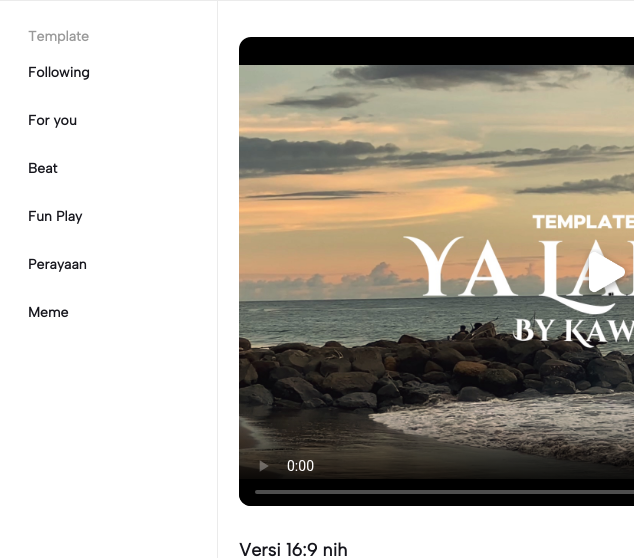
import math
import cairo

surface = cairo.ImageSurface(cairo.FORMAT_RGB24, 634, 558)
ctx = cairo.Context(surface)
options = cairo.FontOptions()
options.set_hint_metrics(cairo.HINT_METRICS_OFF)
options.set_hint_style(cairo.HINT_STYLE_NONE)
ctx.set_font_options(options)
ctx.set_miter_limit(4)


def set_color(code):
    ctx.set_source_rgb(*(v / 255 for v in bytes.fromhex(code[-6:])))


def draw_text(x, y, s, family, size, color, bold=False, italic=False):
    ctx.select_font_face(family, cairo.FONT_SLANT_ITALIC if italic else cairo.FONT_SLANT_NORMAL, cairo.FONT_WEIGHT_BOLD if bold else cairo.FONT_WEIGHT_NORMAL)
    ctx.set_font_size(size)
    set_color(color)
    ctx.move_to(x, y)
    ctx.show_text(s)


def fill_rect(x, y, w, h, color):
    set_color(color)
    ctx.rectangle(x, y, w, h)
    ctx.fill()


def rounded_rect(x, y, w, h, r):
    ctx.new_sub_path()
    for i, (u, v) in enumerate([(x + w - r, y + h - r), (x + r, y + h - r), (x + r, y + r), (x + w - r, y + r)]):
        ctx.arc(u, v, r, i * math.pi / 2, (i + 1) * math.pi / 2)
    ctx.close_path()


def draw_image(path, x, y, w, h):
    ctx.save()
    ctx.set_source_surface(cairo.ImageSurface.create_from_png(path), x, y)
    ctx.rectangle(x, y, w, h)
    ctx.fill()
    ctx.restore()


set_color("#ffffff")
ctx.paint()
fill_rect(0, 0, 634, 1, "#ebebeb")
fill_rect(217, 1, 1, 557, "#ebebeb")
draw_text(28, 41, "Template", "Albert Sans", 14, "#999999", bold=True)
draw_text(28, 77, "Following", "Albert Sans", 14, "#16161d", bold=True)
draw_text(28, 125, "For you", "Albert Sans", 14, "#16161d", bold=True)
draw_text(28, 173, "Beat", "Albert Sans", 14, "#16161d", bold=True)
draw_text(28, 221, "Fun Play", "Albert Sans", 14, "#16161d", bold=True)
draw_text(28, 269, "Perayaan", "Albert Sans", 14, "#16161d", bold=True)
draw_text(28, 317, "Meme", "Albert Sans", 14, "#16161d", bold=True)
set_color("#000000")
rounded_rect(239, 37, 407, 469, 12)
ctx.fill()
draw_image("assets/img1.png", 239, 65, 395, 441)
draw_image("assets/img2.png", 582, 249, 48, 48)
draw_text(239, 556, "Versi 16:9 nih", "Albert Sans", 18, "#16161d", bold=True)
surface.write_to_png("output.png")
